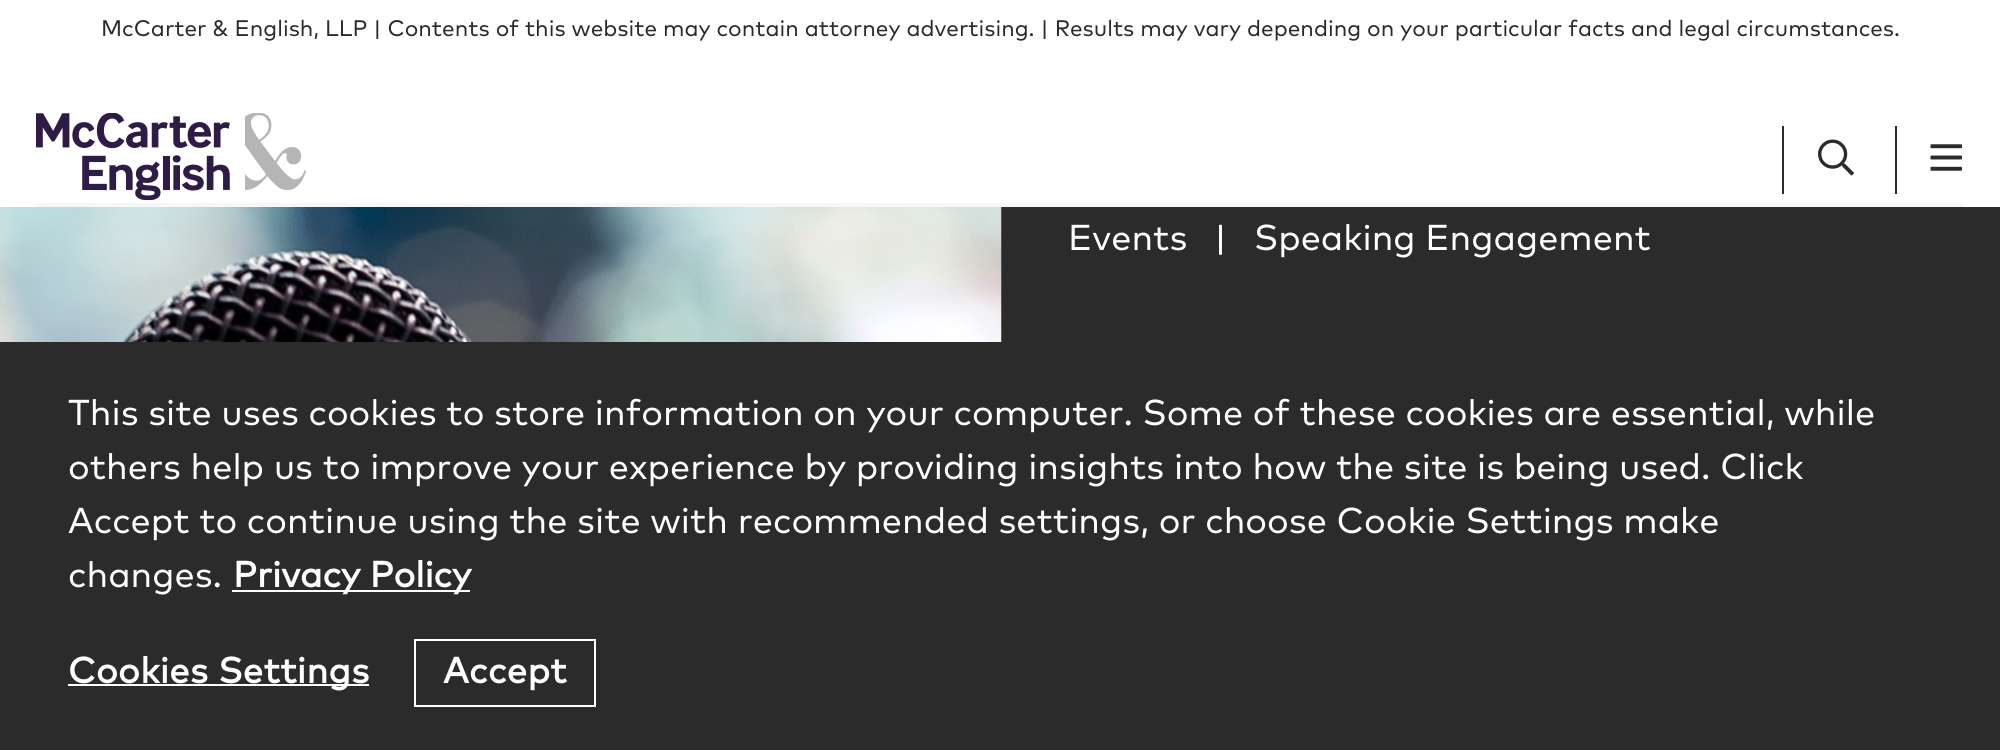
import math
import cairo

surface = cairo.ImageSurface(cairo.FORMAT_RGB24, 2000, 750)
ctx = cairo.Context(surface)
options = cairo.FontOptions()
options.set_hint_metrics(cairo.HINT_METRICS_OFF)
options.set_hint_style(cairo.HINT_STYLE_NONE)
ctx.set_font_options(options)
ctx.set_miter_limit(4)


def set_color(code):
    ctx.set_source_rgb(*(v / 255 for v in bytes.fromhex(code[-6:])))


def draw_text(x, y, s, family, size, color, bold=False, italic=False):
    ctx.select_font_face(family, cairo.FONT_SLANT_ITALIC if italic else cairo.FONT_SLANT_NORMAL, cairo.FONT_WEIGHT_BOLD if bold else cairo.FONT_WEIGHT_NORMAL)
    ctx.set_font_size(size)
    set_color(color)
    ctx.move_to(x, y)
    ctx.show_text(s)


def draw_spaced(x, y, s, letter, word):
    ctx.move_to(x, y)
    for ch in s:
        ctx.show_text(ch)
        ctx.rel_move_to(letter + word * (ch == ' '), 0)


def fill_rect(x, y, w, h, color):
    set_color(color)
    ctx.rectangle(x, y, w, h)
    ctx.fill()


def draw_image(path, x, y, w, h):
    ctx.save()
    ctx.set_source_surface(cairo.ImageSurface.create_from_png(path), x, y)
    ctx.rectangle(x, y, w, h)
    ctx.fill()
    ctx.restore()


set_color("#2b2b2b")
ctx.paint()
fill_rect(0, 0, 2000, 207, "#ffffff")
draw_image("assets/img1.png", 36, 113, 270, 87)
fill_rect(1782, 126, 2, 68, "#2b2b2b")
draw_image("assets/img2.png", 1818, 139, 36, 37)
fill_rect(1895, 126, 2, 68, "#2b2b2b")
draw_image("assets/img3.png", 1930, 144, 32, 27)
fill_rect(36, 203, 1928, 4, "#f5f8fa")
draw_text(101, 36, "McCarter & English, LLP | Contents of this website may contain attorney advertising. | Results may vary depending on your particular facts and legal circumstances.", "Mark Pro", 22.5, "#2b2b2b")
draw_image("assets/img4.png", 0, 207, 1002, 135)
draw_text(1068, 250, "Events", "Mark Pro", 36, "#ffffff")
draw_text(1214, 250, "|", "Mark Pro", 36, "#ffffff")
draw_text(1254, 250, "Speaking Engagement", "Mark Pro", 36, "#ffffff")
draw_text(68, 425, "This site uses cookies to store information on your computer. Some of these cookies are essential, while", "Mark Pro", 36, "#ffffff")
draw_text(68, 479, "others help us to improve your experience by providing insights into how the site is being used. Click", "Mark Pro", 36, "#ffffff")
draw_text(68, 533, "Accept to continue using the site with recommended settings, or choose Cookie Settings make", "Mark Pro", 36, "#ffffff")
draw_text(68, 587, "changes.", "Mark Pro", 36, "#ffffff")
fill_rect(232, 590, 238, 2, "#ffffff")
draw_text(233, 587, "Privacy Policy", "Mark Pro", 36, "#ffffff", bold=True)
fill_rect(68, 684, 301, 2, "#ffffff")
draw_spaced(68, 683, "Cookies Settings", 0.4, 0)
ctx.rectangle(415, 640, 180, 66)
ctx.stroke()
draw_spaced(443, 683, "Accept", 0.4, 0)
surface.write_to_png("output.png")
